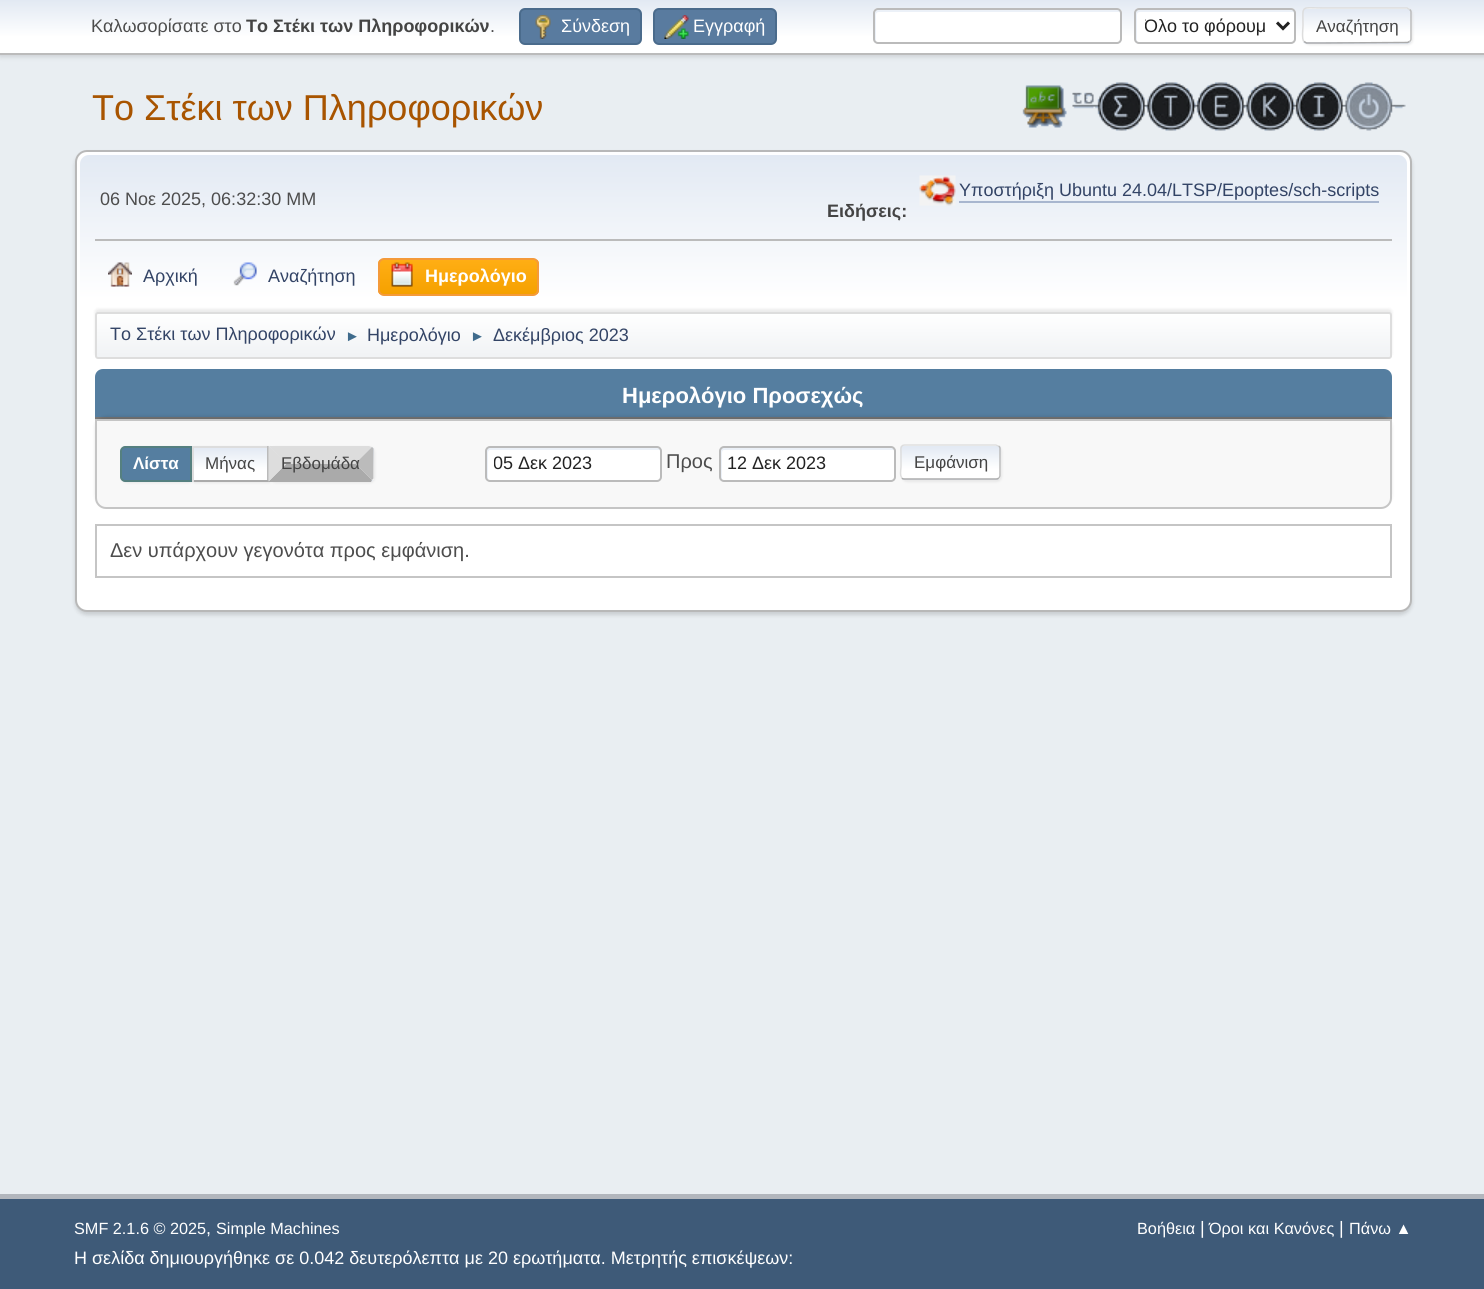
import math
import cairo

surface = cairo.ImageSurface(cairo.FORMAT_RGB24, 1484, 1289)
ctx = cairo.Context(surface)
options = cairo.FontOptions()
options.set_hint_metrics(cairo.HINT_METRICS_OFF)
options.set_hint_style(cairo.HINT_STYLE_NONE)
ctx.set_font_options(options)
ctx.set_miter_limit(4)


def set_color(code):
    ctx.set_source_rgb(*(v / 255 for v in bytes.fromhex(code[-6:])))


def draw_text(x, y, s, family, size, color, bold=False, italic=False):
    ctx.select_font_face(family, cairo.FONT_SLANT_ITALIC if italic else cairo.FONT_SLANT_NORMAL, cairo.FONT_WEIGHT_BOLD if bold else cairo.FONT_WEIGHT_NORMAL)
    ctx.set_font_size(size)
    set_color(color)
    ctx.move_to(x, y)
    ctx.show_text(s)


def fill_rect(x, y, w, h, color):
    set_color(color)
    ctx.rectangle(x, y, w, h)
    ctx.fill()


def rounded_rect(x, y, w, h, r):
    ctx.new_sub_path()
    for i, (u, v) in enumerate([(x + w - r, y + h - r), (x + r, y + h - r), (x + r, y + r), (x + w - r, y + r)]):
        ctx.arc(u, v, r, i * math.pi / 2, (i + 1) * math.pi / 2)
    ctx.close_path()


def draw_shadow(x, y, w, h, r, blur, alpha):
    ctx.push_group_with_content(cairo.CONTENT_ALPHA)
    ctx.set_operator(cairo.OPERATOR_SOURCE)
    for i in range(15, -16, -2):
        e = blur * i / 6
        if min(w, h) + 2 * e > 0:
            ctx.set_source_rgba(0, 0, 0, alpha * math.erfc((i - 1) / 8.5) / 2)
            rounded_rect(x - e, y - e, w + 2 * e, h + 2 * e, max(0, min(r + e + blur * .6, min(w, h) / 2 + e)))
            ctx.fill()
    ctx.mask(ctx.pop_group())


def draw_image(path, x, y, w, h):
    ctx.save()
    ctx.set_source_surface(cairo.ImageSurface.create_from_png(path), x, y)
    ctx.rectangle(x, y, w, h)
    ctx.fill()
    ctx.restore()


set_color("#e9eef2")
ctx.paint()
set_color("#000000")
draw_shadow(0, 2, 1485, 54, 0, 3, 0.16)
gradient = cairo.LinearGradient(743, 0, 743, 53)
gradient.add_color_stop_rgba(0, 0.886, 0.914, 0.953, 1)
gradient.add_color_stop_rgba(0.7, 1, 1, 1, 1)
ctx.set_source(gradient)
ctx.rectangle(0, 0, 1484, 53)
ctx.fill()
fill_rect(0, 53, 1484, 2, "#bbbbbb")
draw_text(91, 32, "Καλωσορίσατε στο", "Liberation Sans", 18, "#4d4d4d")
draw_text(246, 32, "Το Στέκι των Πληροφορικών", "Liberation Sans", 18, "#444444", bold=True)
draw_text(490, 32, ".", "Liberation Sans", 18, "#4d4d4d")
set_color("#597b9f")
rounded_rect(520, 9, 121, 35, 5)
ctx.fill_preserve()
set_color("#4a6b8c")
ctx.stroke()
draw_image("assets/img1.png", 535, 15, 16, 24)
draw_text(561, 32, "Σύνδεση", "Liberation Sans", 18, "#ffffff")
set_color("#597b9f")
rounded_rect(654, 9, 122, 35, 5)
ctx.fill_preserve()
set_color("#4a6b8c")
ctx.stroke()
draw_image("assets/img2.png", 664, 15, 25, 24)
draw_text(693, 32, "Εγγραφή", "Liberation Sans", 18, "#ffffff")
rounded_rect(873, 8, 249, 36, 5)
ctx.fill()
set_color("#ecf1f8")
ctx.new_path()
ctx.move_to(879, 12)
ctx.line_to(1119, 12)
ctx.line_to(1121, 13)
ctx.line_to(1121, 12)
ctx.curve_to(1121, 10, 1120, 9, 1118, 9)
ctx.line_to(878, 9)
ctx.curve_to(876, 9, 875, 10, 875, 12)
ctx.line_to(875, 39)
ctx.curve_to(875, 40, 875, 41, 876, 41)
ctx.line_to(876, 15)
ctx.curve_to(876, 13, 877, 12, 879, 12)
ctx.close_path()
ctx.fill()
rounded_rect(874, 9, 247, 34, 4)
set_color("#bbbbbb")
ctx.stroke()
set_color("#ffffff")
rounded_rect(1134, 8, 162, 36, 5)
ctx.fill()
set_color("#ecf1f8")
ctx.new_path()
ctx.move_to(1140, 12)
ctx.line_to(1293, 12)
ctx.line_to(1295, 13)
ctx.line_to(1295, 12)
ctx.curve_to(1295, 10, 1294, 9, 1292, 9)
ctx.line_to(1139, 9)
ctx.curve_to(1137, 9, 1136, 10, 1136, 12)
ctx.line_to(1136, 39)
ctx.curve_to(1136, 40, 1136, 41, 1137, 41)
ctx.line_to(1137, 15)
ctx.curve_to(1137, 13, 1138, 12, 1140, 12)
ctx.close_path()
ctx.fill()
rounded_rect(1135, 9, 160, 34, 4)
set_color("#bbbbbb")
ctx.stroke()
ctx.new_path()
ctx.move_to(1277, 22.5)
ctx.line_to(1283, 28.5)
ctx.line_to(1289, 22.5)
set_color("#222222")
ctx.set_line_width(3)
ctx.stroke()
ctx.save()
ctx.rectangle(1145, 14, 123, 24)
ctx.clip()
draw_text(1144, 32, "Όλο το φόρουμ", "Liberation Sans", 18, "#222222")
ctx.restore()
set_color("#dddddd")
draw_shadow(1304, 9, 109, 36, 5, 1, 0.57)
ctx.save()
rounded_rect(1302, 8, 110, 36, 5)
ctx.clip()
gradient = cairo.LinearGradient(1357, -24, 1357, 9)
gradient.add_color_stop_rgba(0, 0.886, 0.914, 0.953, 1)
gradient.add_color_stop_rgba(0.7, 1, 1, 1, 1)
ctx.set_source(gradient)
ctx.rectangle(1302, 8, 110, 1)
ctx.fill()
gradient = cairo.LinearGradient(1357, 9, 1357, 42)
gradient.add_color_stop_rgba(0, 0.886, 0.914, 0.953, 1)
gradient.add_color_stop_rgba(0.7, 1, 1, 1, 1)
ctx.set_source(gradient)
ctx.rectangle(1302, 9, 110, 33)
ctx.fill()
gradient = cairo.LinearGradient(1357, 42, 1357, 75)
gradient.add_color_stop_rgba(0, 0.886, 0.914, 0.953, 1)
gradient.add_color_stop_rgba(0.7, 1, 1, 1, 1)
ctx.set_source(gradient)
ctx.rectangle(1302, 42, 110, 2)
ctx.fill()
ctx.restore()
ctx.new_path()
ctx.move_to(1409.5, 9.5)
ctx.curve_to(1410.5, 10, 1411, 11, 1411, 12)
ctx.line_to(1411, 39)
ctx.curve_to(1411, 40, 1410.5, 41, 1409.5, 41.5)
set_color("#bbbbbb")
ctx.set_line_width(1.5)
ctx.stroke()
ctx.new_path()
ctx.move_to(1409.5, 41.5)
ctx.line_to(1407.5, 42.5)
ctx.line_to(1323, 43)
ctx.line_to(1306.5, 43)
ctx.line_to(1304, 41.5)
set_color("#aaaaaa")
ctx.stroke()
ctx.new_path()
ctx.move_to(1304, 41.5)
ctx.curve_to(1301.5, 39.5, 1303, 28.5, 1303, 25.5)
ctx.curve_to(1303, 4.5, 1300, 8, 1323, 8)
ctx.line_to(1407, 8)
ctx.line_to(1409.5, 9.5)
set_color("#dddddd")
ctx.stroke()
draw_text(1316, 32, "Αναζήτηση", "Liberation Sans", 17, "#444444")
draw_text(92, 120, "Το Στέκι των Πληροφορικών", "Liberation Sans", 36, "#a85400")
draw_image("assets/img3.png", 1022, 82, 384, 49)
set_color("#000000")
draw_shadow(75, 153, 1337, 462, 12, 2, 0.14)
set_color("#ffffff")
rounded_rect(76, 151, 1335, 460, 11)
ctx.fill_preserve()
set_color("#b8b8b8")
ctx.set_line_width(2)
ctx.stroke()
gradient = cairo.LinearGradient(743, 154, 743, 362)
gradient.add_color_stop_rgba(0, 0.886, 0.914, 0.953, 1)
gradient.add_color_stop_rgba(0.7, 1, 1, 1, 1)
ctx.set_source(gradient)
ctx.new_path()
ctx.move_to(89, 155)
ctx.line_to(1398, 155)
ctx.curve_to(1403, 155, 1407, 159, 1407, 164)
ctx.line_to(1407, 362)
ctx.line_to(80, 362)
ctx.line_to(80, 164)
ctx.curve_to(80, 159, 84, 155, 89, 155)
ctx.close_path()
ctx.fill()
fill_rect(95, 239, 1297, 2, "#bbbbbb")
draw_text(100, 205, "06 Νοε 2025, 06:32:30 ΜΜ", "Liberation Sans", 18, "#4d4d4d")
draw_image("assets/img4.png", 919, 175, 37, 31)
draw_text(959, 196, "Υποστήριξη Ubuntu 24.04/LTSP/Epoptes/sch-scripts", "Liberation Sans", 18, "#334466")
fill_rect(959, 201, 420, 2, "#a8b6cf")
draw_text(827, 217, "Ειδήσεις:", "Liberation Sans", 18, "#444444", bold=True)
draw_image("assets/img5.png", 108, 262, 24, 25)
draw_text(143, 282, "Αρχική", "Liberation Sans", 18, "#334466")
draw_image("assets/img6.png", 233, 262, 24, 24)
draw_text(268, 282, "Αναζήτηση", "Liberation Sans", 18, "#334466")
ctx.save()
rounded_rect(378, 258, 161, 38, 6)
ctx.clip()
gradient = cairo.LinearGradient(458, 260, 458, 294)
gradient.add_color_stop_rgba(0, 1, 0.682, 0.078, 1)
gradient.add_color_stop_rgba(1, 0.961, 0.631, 0, 1)
ctx.set_source(gradient)
ctx.rectangle(378, 260, 161, 34)
ctx.fill()
ctx.restore()
rounded_rect(379, 259, 159, 36, 5)
set_color("#f49a3a")
ctx.stroke()
draw_image("assets/img7.png", 391, 262, 22, 25)
draw_text(425, 282, "Ημερολόγιο", "Liberation Sans", 18, "#ffffff", bold=True)
set_color("#000000")
draw_shadow(95, 309, 1297, 47, 3, 1.5, 0.08)
ctx.save()
rounded_rect(95, 312, 1297, 47, 3)
ctx.clip()
gradient = cairo.LinearGradient(743, 313, 743, 357)
gradient.add_color_stop_rgba(0, 1, 1, 1, 1)
gradient.add_color_stop_rgba(0.95, 0.945, 0.953, 0.961, 1)
ctx.set_source(gradient)
ctx.rectangle(95, 314, 1297, 43)
ctx.fill()
ctx.restore()
rounded_rect(96, 313, 1295, 45, 2)
set_color("#dddddd")
ctx.stroke()
draw_text(110, 340, "Το Στέκι των Πληροφορικών", "Liberation Sans", 18, "#334466")
draw_text(345, 341, "►", "Liberation Sans", 15, "#3f6b8c")
draw_text(367, 341, "Ημερολόγιο", "Liberation Sans", 18, "#334466")
draw_text(470, 341, "►", "Liberation Sans", 15, "#3f6b8c")
draw_text(493, 341, "Δεκέμβριος 2023", "Liberation Sans", 18, "#334466")
set_color("#557ea0")
ctx.new_path()
ctx.move_to(103, 369)
ctx.line_to(1384, 369)
ctx.curve_to(1388.5, 369, 1392, 372.5, 1392, 377)
ctx.line_to(1392, 419)
ctx.line_to(95, 419)
ctx.line_to(95, 377)
ctx.curve_to(95, 372.5, 98.5, 369, 103, 369)
ctx.close_path()
ctx.fill()
fill_rect(95, 417, 1297, 2, "#777777")
draw_text(622, 403, "Ημερολόγιο Προσεχώς", "Liberation Sans", 22, "#ffffff", bold=True)
set_color("#000000")
draw_shadow(95, 416, 1297, 90, 11, 1.5, 0.1)
set_color("#f8f8f8")
ctx.new_path()
ctx.move_to(96, 420)
ctx.line_to(1391, 420)
ctx.line_to(1391, 498)
ctx.curve_to(1391, 503.5, 1386.5, 508, 1381, 508)
ctx.line_to(106, 508)
ctx.curve_to(100.5, 508, 96, 503.5, 96, 498)
ctx.close_path()
ctx.fill_preserve()
set_color("#c5c5c5")
ctx.stroke()
set_color("#dddddd")
draw_shadow(122, 447, 72, 36, 5, 1, 0.57)
set_color("#557ea0")
ctx.new_path()
ctx.move_to(125, 447)
ctx.line_to(191, 447)
ctx.line_to(191, 481)
ctx.line_to(125, 481)
ctx.curve_to(123, 481, 121, 479, 121, 477)
ctx.line_to(121, 451)
ctx.curve_to(121, 449, 123, 447, 125, 447)
ctx.close_path()
ctx.fill_preserve()
set_color("#558080")
ctx.stroke()
draw_text(133, 469, "Λίστα", "Liberation Sans", 17, "#ffffff", bold=True)
set_color("#dddddd")
draw_shadow(194, 447, 76, 36, 0, 1, 0.57)
gradient = cairo.LinearGradient(230, 447, 230, 480)
gradient.add_color_stop_rgba(0, 0.886, 0.914, 0.953, 1)
gradient.add_color_stop_rgba(0.7, 1, 1, 1, 1)
ctx.set_source(gradient)
ctx.rectangle(194, 448, 73, 32)
ctx.fill()
fill_rect(192, 446, 77, 2, "#dddddd")
fill_rect(267, 446, 2, 36, "#bbbbbb")
fill_rect(192, 480, 77, 2, "#aaaaaa")
fill_rect(192, 446, 2, 36, "#dddddd")
draw_text(205, 469, "Μήνας", "Liberation Sans", 17, "#444444")
set_color("#dddddd")
draw_shadow(270, 447, 105, 36, 5, 1, 0.57)
ctx.save()
ctx.new_path()
ctx.move_to(269, 446)
ctx.line_to(369, 446)
ctx.curve_to(372, 446, 374, 448, 374, 451)
ctx.line_to(374, 477)
ctx.curve_to(374, 480, 372, 482, 369, 482)
ctx.line_to(269, 482)
ctx.close_path()
ctx.clip()
gradient = cairo.LinearGradient(321, 414, 321, 447)
gradient.add_color_stop_rgba(0, 0.886, 0.914, 0.953, 1)
gradient.add_color_stop_rgba(0.7, 1, 1, 1, 1)
ctx.set_source(gradient)
ctx.rectangle(269, 446, 105, 1)
ctx.fill()
gradient = cairo.LinearGradient(321, 447, 321, 480)
gradient.add_color_stop_rgba(0, 0.886, 0.914, 0.953, 1)
gradient.add_color_stop_rgba(0.7, 1, 1, 1, 1)
ctx.set_source(gradient)
ctx.rectangle(270, 447, 104, 33)
ctx.fill()
gradient = cairo.LinearGradient(321, 480, 321, 513)
gradient.add_color_stop_rgba(0, 0.886, 0.914, 0.953, 1)
gradient.add_color_stop_rgba(0.7, 1, 1, 1, 1)
ctx.set_source(gradient)
ctx.rectangle(269, 480, 105, 2)
ctx.fill()
ctx.restore()
set_color("#dddddd")
ctx.new_path()
ctx.move_to(372, 447)
ctx.line_to(369, 446)
ctx.line_to(269, 446)
ctx.line_to(286, 464)
ctx.line_to(356, 464)
ctx.close_path()
ctx.fill()
set_color("#bbbbbb")
ctx.new_path()
ctx.move_to(373.5, 478.5)
ctx.line_to(372, 480)
ctx.line_to(355.5, 463.5)
ctx.line_to(372, 447)
ctx.line_to(373.5, 448.5)
ctx.close_path()
ctx.fill()
set_color("#aaaaaa")
ctx.new_path()
ctx.move_to(372, 480)
ctx.line_to(356, 464)
ctx.line_to(286, 464)
ctx.line_to(268, 482)
ctx.line_to(371, 482)
ctx.close_path()
ctx.fill()
set_color("#dddddd")
ctx.new_path()
ctx.move_to(268.5, 481.5)
ctx.line_to(286.5, 463.5)
ctx.line_to(269, 446)
ctx.line_to(268.5, 446)
ctx.close_path()
ctx.fill()
draw_text(281, 469, "Εβδομάδα", "Liberation Sans", 17, "#444444")
set_color("#ffffff")
rounded_rect(485, 446, 177, 36, 5)
ctx.fill()
set_color("#ecf1f8")
ctx.new_path()
ctx.move_to(490, 450)
ctx.line_to(660, 450)
ctx.curve_to(660, 448, 659, 447, 657, 447)
ctx.line_to(489, 447)
ctx.curve_to(487, 447, 486, 448, 486, 450)
ctx.line_to(486, 477)
ctx.curve_to(486, 478, 487, 479, 488, 480)
ctx.line_to(488, 453)
ctx.curve_to(488, 451, 489, 450, 490, 450)
ctx.close_path()
ctx.fill()
rounded_rect(486, 447, 175, 34, 4)
set_color("#bbbbbb")
ctx.stroke()
ctx.save()
ctx.rectangle(494, 446, 159, 36)
ctx.clip()
draw_text(493, 469, "05 Δεκ 2023", "Liberation Sans", 18, "#222222")
ctx.restore()
draw_text(666, 468, "Προς", "Liberation Sans", 20, "#4d4d4d")
set_color("#ffffff")
rounded_rect(719, 446, 177, 36, 5)
ctx.fill()
set_color("#ecf1f8")
ctx.new_path()
ctx.move_to(724, 450)
ctx.line_to(894, 450)
ctx.curve_to(894, 448, 893, 447, 891, 447)
ctx.line_to(723, 447)
ctx.curve_to(721, 447, 720, 448, 720, 450)
ctx.line_to(720, 477)
ctx.curve_to(720, 478, 721, 479, 722, 480)
ctx.line_to(722, 453)
ctx.curve_to(722, 451, 723, 450, 724, 450)
ctx.close_path()
ctx.fill()
rounded_rect(720, 447, 175, 34, 4)
set_color("#bbbbbb")
ctx.stroke()
draw_text(727, 469, "12 Δεκ 2023", "Liberation Sans", 18, "#222222")
set_color("#dddddd")
draw_shadow(902, 446, 100, 36, 5, 1, 0.57)
ctx.save()
rounded_rect(900, 444, 101, 36, 5)
ctx.clip()
gradient = cairo.LinearGradient(950, 413, 950, 446)
gradient.add_color_stop_rgba(0, 0.886, 0.914, 0.953, 1)
gradient.add_color_stop_rgba(0.7, 1, 1, 1, 1)
ctx.set_source(gradient)
ctx.rectangle(900, 444, 101, 2)
ctx.fill()
gradient = cairo.LinearGradient(950, 446, 950, 479)
gradient.add_color_stop_rgba(0, 0.886, 0.914, 0.953, 1)
gradient.add_color_stop_rgba(0.7, 1, 1, 1, 1)
ctx.set_source(gradient)
ctx.rectangle(900, 446, 101, 33)
ctx.fill()
gradient = cairo.LinearGradient(950, 479, 950, 512)
gradient.add_color_stop_rgba(0, 0.886, 0.914, 0.953, 1)
gradient.add_color_stop_rgba(0.7, 1, 1, 1, 1)
ctx.set_source(gradient)
ctx.rectangle(900, 479, 101, 1)
ctx.fill()
ctx.restore()
ctx.new_path()
ctx.move_to(998.5, 446)
ctx.curve_to(999.5, 446.5, 1000, 447.5, 1000, 448.5)
ctx.line_to(1000, 475.5)
ctx.curve_to(1000, 476.5, 999.5, 477.5, 998.5, 478)
set_color("#bbbbbb")
ctx.set_line_width(1.5)
ctx.stroke()
ctx.new_path()
ctx.move_to(998.5, 478)
ctx.curve_to(998, 479, 997, 479, 996, 479)
ctx.line_to(904.5, 479)
ctx.curve_to(903.5, 479, 902.5, 479, 902, 478)
set_color("#aaaaaa")
ctx.stroke()
ctx.new_path()
ctx.move_to(902, 478)
ctx.curve_to(899.5, 475.5, 901, 469.5, 901, 466.5)
ctx.line_to(901, 453)
ctx.curve_to(901, 450, 900, 445, 904.5, 445)
ctx.line_to(996, 445)
ctx.line_to(998.5, 446)
set_color("#dddddd")
ctx.stroke()
draw_text(914, 468, "Εμφάνιση", "Liberation Sans", 17, "#444444")
ctx.rectangle(96, 525, 1295, 52)
set_color("#c5c5c5")
ctx.set_line_width(2)
ctx.stroke()
draw_text(110, 557, "Δεν υπάρχουν γεγονότα προς εμφάνιση.", "Liberation Sans", 20, "#4d4d4d")
fill_rect(0, 1199, 1484, 90, "#3e5a78")
fill_rect(0, 1194, 1484, 5, "#b2b6bd")
draw_text(74, 1234, "SMF 2.1.6 © 2025", "Liberation Sans", 16.25, "#ffffff")
draw_text(206, 1234, ",", "Liberation Sans", 18, "#ffffff")
draw_text(216, 1234, "Simple Machines", "Liberation Sans", 16.25, "#ffffff")
draw_text(1137, 1234, "Βοήθεια", "Liberation Sans", 16.25, "#ffffff")
draw_text(1200, 1234, "|", "Liberation Sans", 18, "#ffffff")
draw_text(1209, 1234, "Όροι και Κανόνες", "Liberation Sans", 16.25, "#ffffff")
draw_text(1339, 1234, "|", "Liberation Sans", 18, "#ffffff")
draw_text(1349, 1234, "Πάνω ▲", "Liberation Sans", 16.25, "#ffffff")
draw_text(74, 1264, "Η σελίδα δημιουργήθηκε σε 0.042 δευτερόλεπτα με 20 ερωτήματα. Μετρητής επισκέψεων:", "Liberation Sans", 18, "#ffffff")
surface.write_to_png("output.png")
